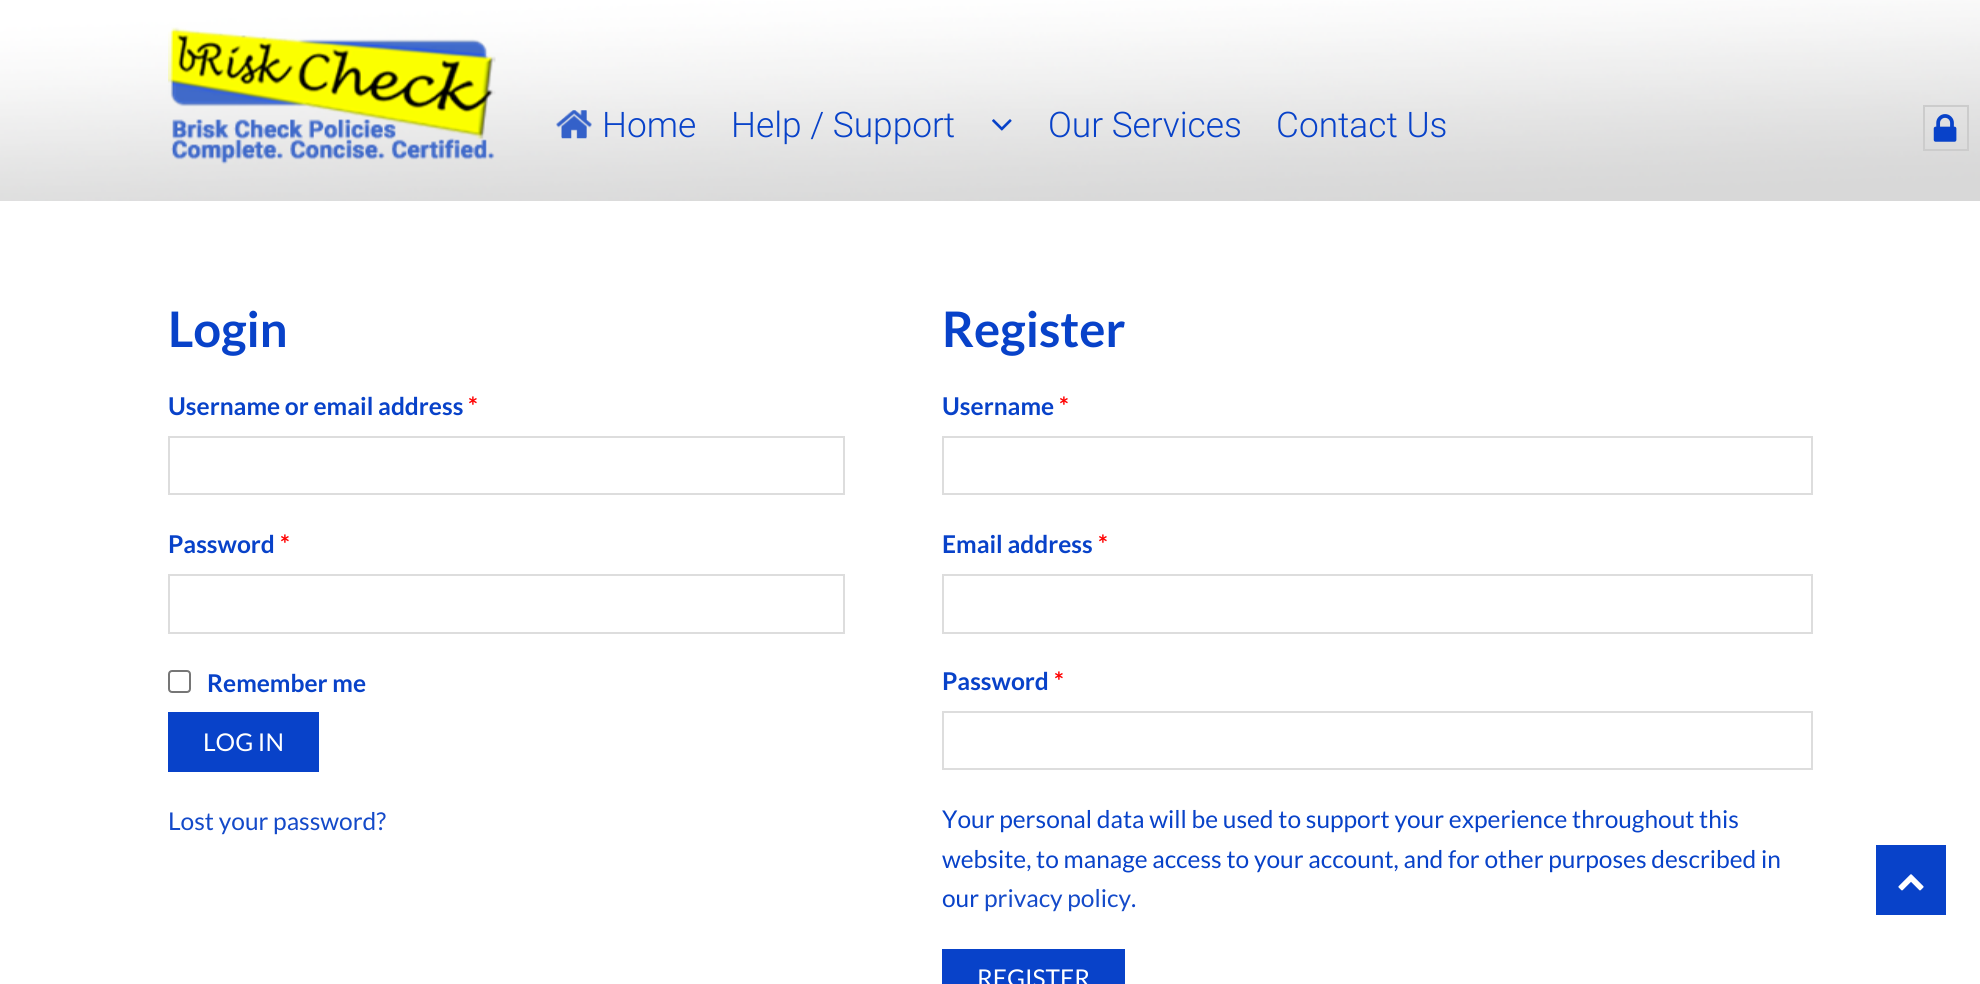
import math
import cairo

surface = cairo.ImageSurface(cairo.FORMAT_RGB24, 1980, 984)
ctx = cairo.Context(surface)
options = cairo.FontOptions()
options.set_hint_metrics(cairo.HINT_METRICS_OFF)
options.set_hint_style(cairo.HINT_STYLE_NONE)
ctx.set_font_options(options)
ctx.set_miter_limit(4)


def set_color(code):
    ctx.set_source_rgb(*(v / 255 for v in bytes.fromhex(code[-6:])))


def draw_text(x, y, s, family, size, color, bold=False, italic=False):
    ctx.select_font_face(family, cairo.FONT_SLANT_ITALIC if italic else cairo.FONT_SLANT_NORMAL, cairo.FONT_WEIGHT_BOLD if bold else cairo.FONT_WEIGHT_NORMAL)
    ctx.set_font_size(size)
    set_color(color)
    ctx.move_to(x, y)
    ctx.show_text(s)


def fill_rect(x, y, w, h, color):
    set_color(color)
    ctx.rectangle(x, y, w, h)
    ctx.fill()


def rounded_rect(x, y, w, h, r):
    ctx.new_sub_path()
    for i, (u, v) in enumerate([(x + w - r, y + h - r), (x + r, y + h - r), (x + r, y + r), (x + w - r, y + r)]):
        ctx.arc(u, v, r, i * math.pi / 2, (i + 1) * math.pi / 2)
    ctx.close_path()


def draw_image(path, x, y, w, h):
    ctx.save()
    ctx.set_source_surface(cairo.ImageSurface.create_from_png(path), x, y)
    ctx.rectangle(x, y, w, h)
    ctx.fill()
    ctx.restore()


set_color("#ffffff")
ctx.paint()
draw_image("assets/img1.png", 0, 0, 1980, 201)
draw_image("assets/img2.png", 168, 27, 328, 138)
ctx.rectangle(1924, 106, 44, 44)
set_color("#cccccc")
ctx.stroke()
draw_image("assets/img3.png", 1933, 114, 24, 28)
draw_image("assets/img4.png", 556, 110, 36, 29)
draw_text(602, 137, "Home", "Roboto Light", 35.25, "#0842c9")
draw_text(731, 137, "Help / Support", "Roboto Light", 35.25, "#0842c9")
draw_image("assets/img5.png", 992, 119, 20, 12)
draw_text(1048, 137, "Our Services", "Roboto Light", 35.25, "#0842c9")
draw_text(1276, 137, "Contact Us", "Roboto Light", 35.25, "#0842c9")
draw_text(168, 347, "Login", "Lato", 49, "#0842c9", bold=True)
draw_text(168, 415, "Username or email address", "Lato", 24.5, "#0842c9", bold=True)
draw_text(468, 415, "*", "Lato", 24.5, "#ff0000", bold=True)
ctx.rectangle(169, 437, 675, 57)
set_color("#dddddd")
ctx.stroke()
draw_text(168, 553, "Password", "Lato", 24.5, "#0842c9", bold=True)
draw_text(280, 553, "*", "Lato", 24.5, "#ff0000", bold=True)
ctx.rectangle(169, 575, 675, 58)
set_color("#dddddd")
ctx.stroke()
rounded_rect(169, 671, 21, 21, 3)
set_color("#767676")
ctx.stroke()
draw_text(207, 692, "Remember me", "Lato", 24.5, "#0842c9", bold=True)
fill_rect(168, 712, 151, 60, "#0842c9")
draw_text(203, 751, "LOG IN", "Lato", 24.5, "#ffffff")
draw_text(168, 830, "Lost your password?", "Lato", 24.5, "#144ac9")
draw_text(942, 347, "Register", "Lato", 49, "#0842c9", bold=True)
draw_text(942, 415, "Username", "Lato", 24.5, "#0842c9", bold=True)
draw_text(1059, 415, "*", "Lato", 24.5, "#ff0000", bold=True)
ctx.rectangle(943, 437, 869, 57)
set_color("#dddddd")
ctx.stroke()
draw_text(942, 553, "Email address", "Lato", 24.5, "#0842c9", bold=True)
draw_text(1098, 553, "*", "Lato", 24.5, "#ff0000", bold=True)
ctx.rectangle(943, 575, 869, 58)
set_color("#dddddd")
ctx.stroke()
draw_text(942, 690, "Password", "Lato", 24.5, "#0842c9", bold=True)
draw_text(1054, 690, "*", "Lato", 24.5, "#ff0000", bold=True)
ctx.rectangle(943, 712, 869, 57)
set_color("#dddddd")
ctx.stroke()
draw_text(942, 828, "Your personal data will be used to support your experience throughout this", "Lato", 24.5, "#0842c9")
draw_text(942, 868, "website, to manage access to your account, and for other purposes described in", "Lato", 24.5, "#0842c9")
draw_text(942, 907, "our", "Lato", 24.5, "#0842c9")
draw_text(984, 907, "privacy policy", "Lato", 24.5, "#144ac9")
draw_text(1131, 907, ".", "Lato", 24.5, "#0842c9")
fill_rect(942, 949, 183, 35, "#0842c9")
draw_text(977, 987, "REGISTER", "Lato", 24.5, "#ffffff")
fill_rect(1876, 845, 70, 70, "#0842c9")
draw_image("assets/img6.png", 1898, 874, 26, 17)
surface.write_to_png("output.png")
